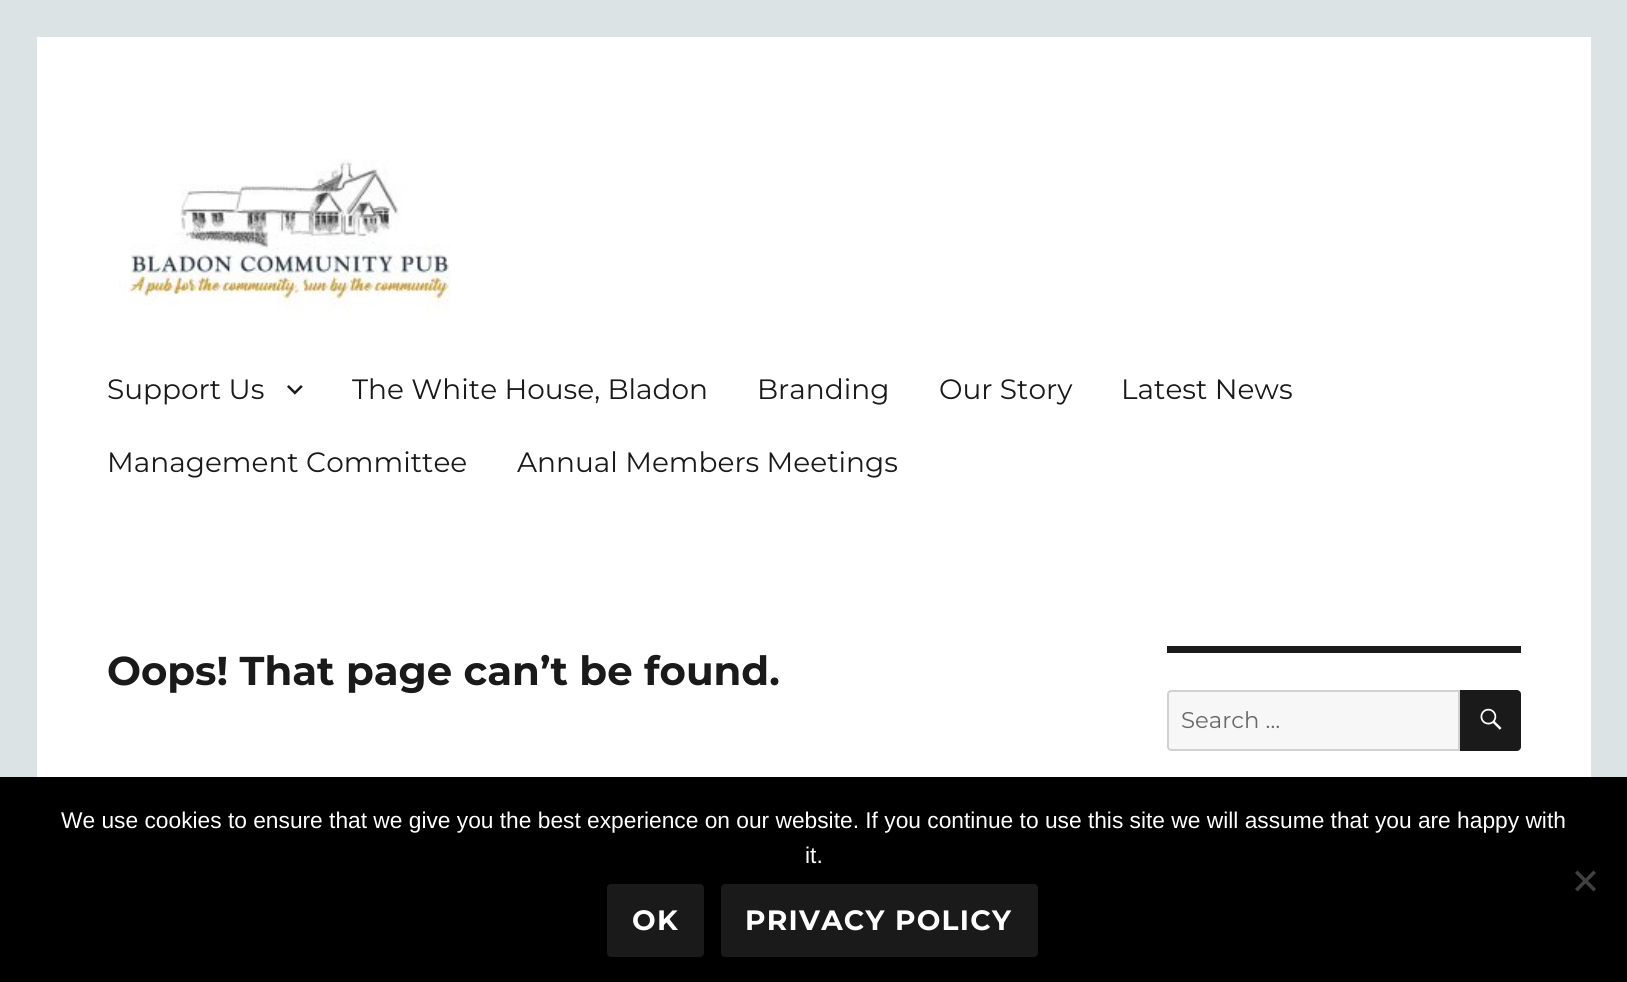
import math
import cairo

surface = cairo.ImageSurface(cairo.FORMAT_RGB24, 1627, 982)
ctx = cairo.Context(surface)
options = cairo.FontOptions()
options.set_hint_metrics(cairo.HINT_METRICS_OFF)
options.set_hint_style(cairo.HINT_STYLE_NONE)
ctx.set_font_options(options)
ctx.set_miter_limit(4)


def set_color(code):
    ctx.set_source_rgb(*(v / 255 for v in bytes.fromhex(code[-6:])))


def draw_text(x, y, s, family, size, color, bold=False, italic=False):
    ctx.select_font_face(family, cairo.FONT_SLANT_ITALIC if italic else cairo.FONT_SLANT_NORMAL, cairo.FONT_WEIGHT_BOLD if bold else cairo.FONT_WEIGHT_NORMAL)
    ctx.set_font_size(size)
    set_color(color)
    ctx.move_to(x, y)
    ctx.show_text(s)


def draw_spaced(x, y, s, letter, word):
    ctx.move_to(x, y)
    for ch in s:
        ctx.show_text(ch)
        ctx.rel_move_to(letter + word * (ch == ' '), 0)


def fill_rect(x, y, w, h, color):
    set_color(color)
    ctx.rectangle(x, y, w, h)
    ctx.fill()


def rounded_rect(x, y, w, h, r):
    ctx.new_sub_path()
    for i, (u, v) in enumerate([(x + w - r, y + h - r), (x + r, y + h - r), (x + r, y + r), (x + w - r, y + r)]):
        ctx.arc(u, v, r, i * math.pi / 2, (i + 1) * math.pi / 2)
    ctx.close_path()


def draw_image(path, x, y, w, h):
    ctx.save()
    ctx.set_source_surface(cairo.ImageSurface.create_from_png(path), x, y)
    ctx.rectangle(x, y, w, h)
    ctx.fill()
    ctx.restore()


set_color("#dce3e5")
ctx.paint()
fill_rect(37, 37, 1554, 740, "#ffffff")
draw_image("assets/img1.png", 119, 159, 332, 154)
draw_text(107, 399, "Support Us", "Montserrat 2 Thin", 28, "#1a1a1a")
draw_image("assets/img2.png", 287, 385, 16, 10)
draw_text(352, 399, "The White House, Bladon", "Montserrat 2 Thin", 28, "#1a1a1a")
draw_text(757, 399, "Branding", "Montserrat 2 Thin", 28, "#1a1a1a")
draw_text(939, 399, "Our Story", "Montserrat 2 Thin", 28, "#1a1a1a")
draw_text(1121, 399, "Latest News", "Montserrat 2 Thin", 28, "#1a1a1a")
draw_text(107, 472, "Management Committee", "Montserrat 2 Thin", 28, "#1a1a1a")
draw_text(517, 472, "Annual Members Meetings", "Montserrat 2 Thin", 28, "#1a1a1a")
draw_text(107, 685, "Oops! That page can’t be found.", "Montserrat Thin", 40.25, "#1a1a1a")
fill_rect(1167, 646, 354, 7, "#1a1a1a")
set_color("#f7f7f7")
ctx.new_path()
ctx.move_to(1171, 691)
ctx.line_to(1459, 691)
ctx.line_to(1459, 750)
ctx.line_to(1171, 750)
ctx.curve_to(1169.5, 750, 1168, 748.5, 1168, 747)
ctx.line_to(1168, 694)
ctx.curve_to(1168, 692.5, 1169.5, 691, 1171, 691)
ctx.close_path()
ctx.fill_preserve()
set_color("#d1d1d1")
ctx.stroke()
draw_text(1181, 728, "Search …", "Montserrat 2 Thin", 22.75, "#686868")
set_color("#1a1a1a")
ctx.new_path()
ctx.move_to(1460, 690)
ctx.line_to(1517, 690)
ctx.curve_to(1519, 690, 1521, 692, 1521, 694)
ctx.line_to(1521, 747)
ctx.curve_to(1521, 749, 1519, 751, 1517, 751)
ctx.line_to(1460, 751)
ctx.close_path()
ctx.fill()
draw_image("assets/img3.png", 1480, 708, 22, 22)
fill_rect(0, 777, 1627, 205, "#000000")
draw_text(61, 828, "We use cookies to ensure that we give you the best experience on our website. If you continue to use this site we will assume that you are happy with", "Liberation Sans", 22.75, "#ffffff")
draw_text(805, 863, "it.", "Liberation Sans", 22.75, "#ffffff")
set_color("#404040")
ctx.new_path()
ctx.move_to(1593.5, 870.5)
ctx.line_to(1596, 873)
ctx.line_to(1577.5, 891.5)
ctx.line_to(1575, 889)
ctx.close_path()
ctx.fill()
ctx.new_path()
ctx.move_to(1575, 873)
ctx.line_to(1577.5, 870.5)
ctx.line_to(1596, 889)
ctx.line_to(1593.5, 891.5)
ctx.close_path()
ctx.fill()
set_color("#1a1a1a")
rounded_rect(607, 884, 97, 73, 4)
ctx.fill()
ctx.select_font_face("Montserrat Thin")
ctx.set_font_size(28)
set_color("#ffffff")
draw_spaced(632, 930, "OK", 1.25, 0)
set_color("#1a1a1a")
rounded_rect(721, 884, 317, 73, 4)
ctx.fill()
set_color("#ffffff")
draw_spaced(745, 930, "PRIVACY POLICY", 1.25, 0)
surface.write_to_png("output.png")
